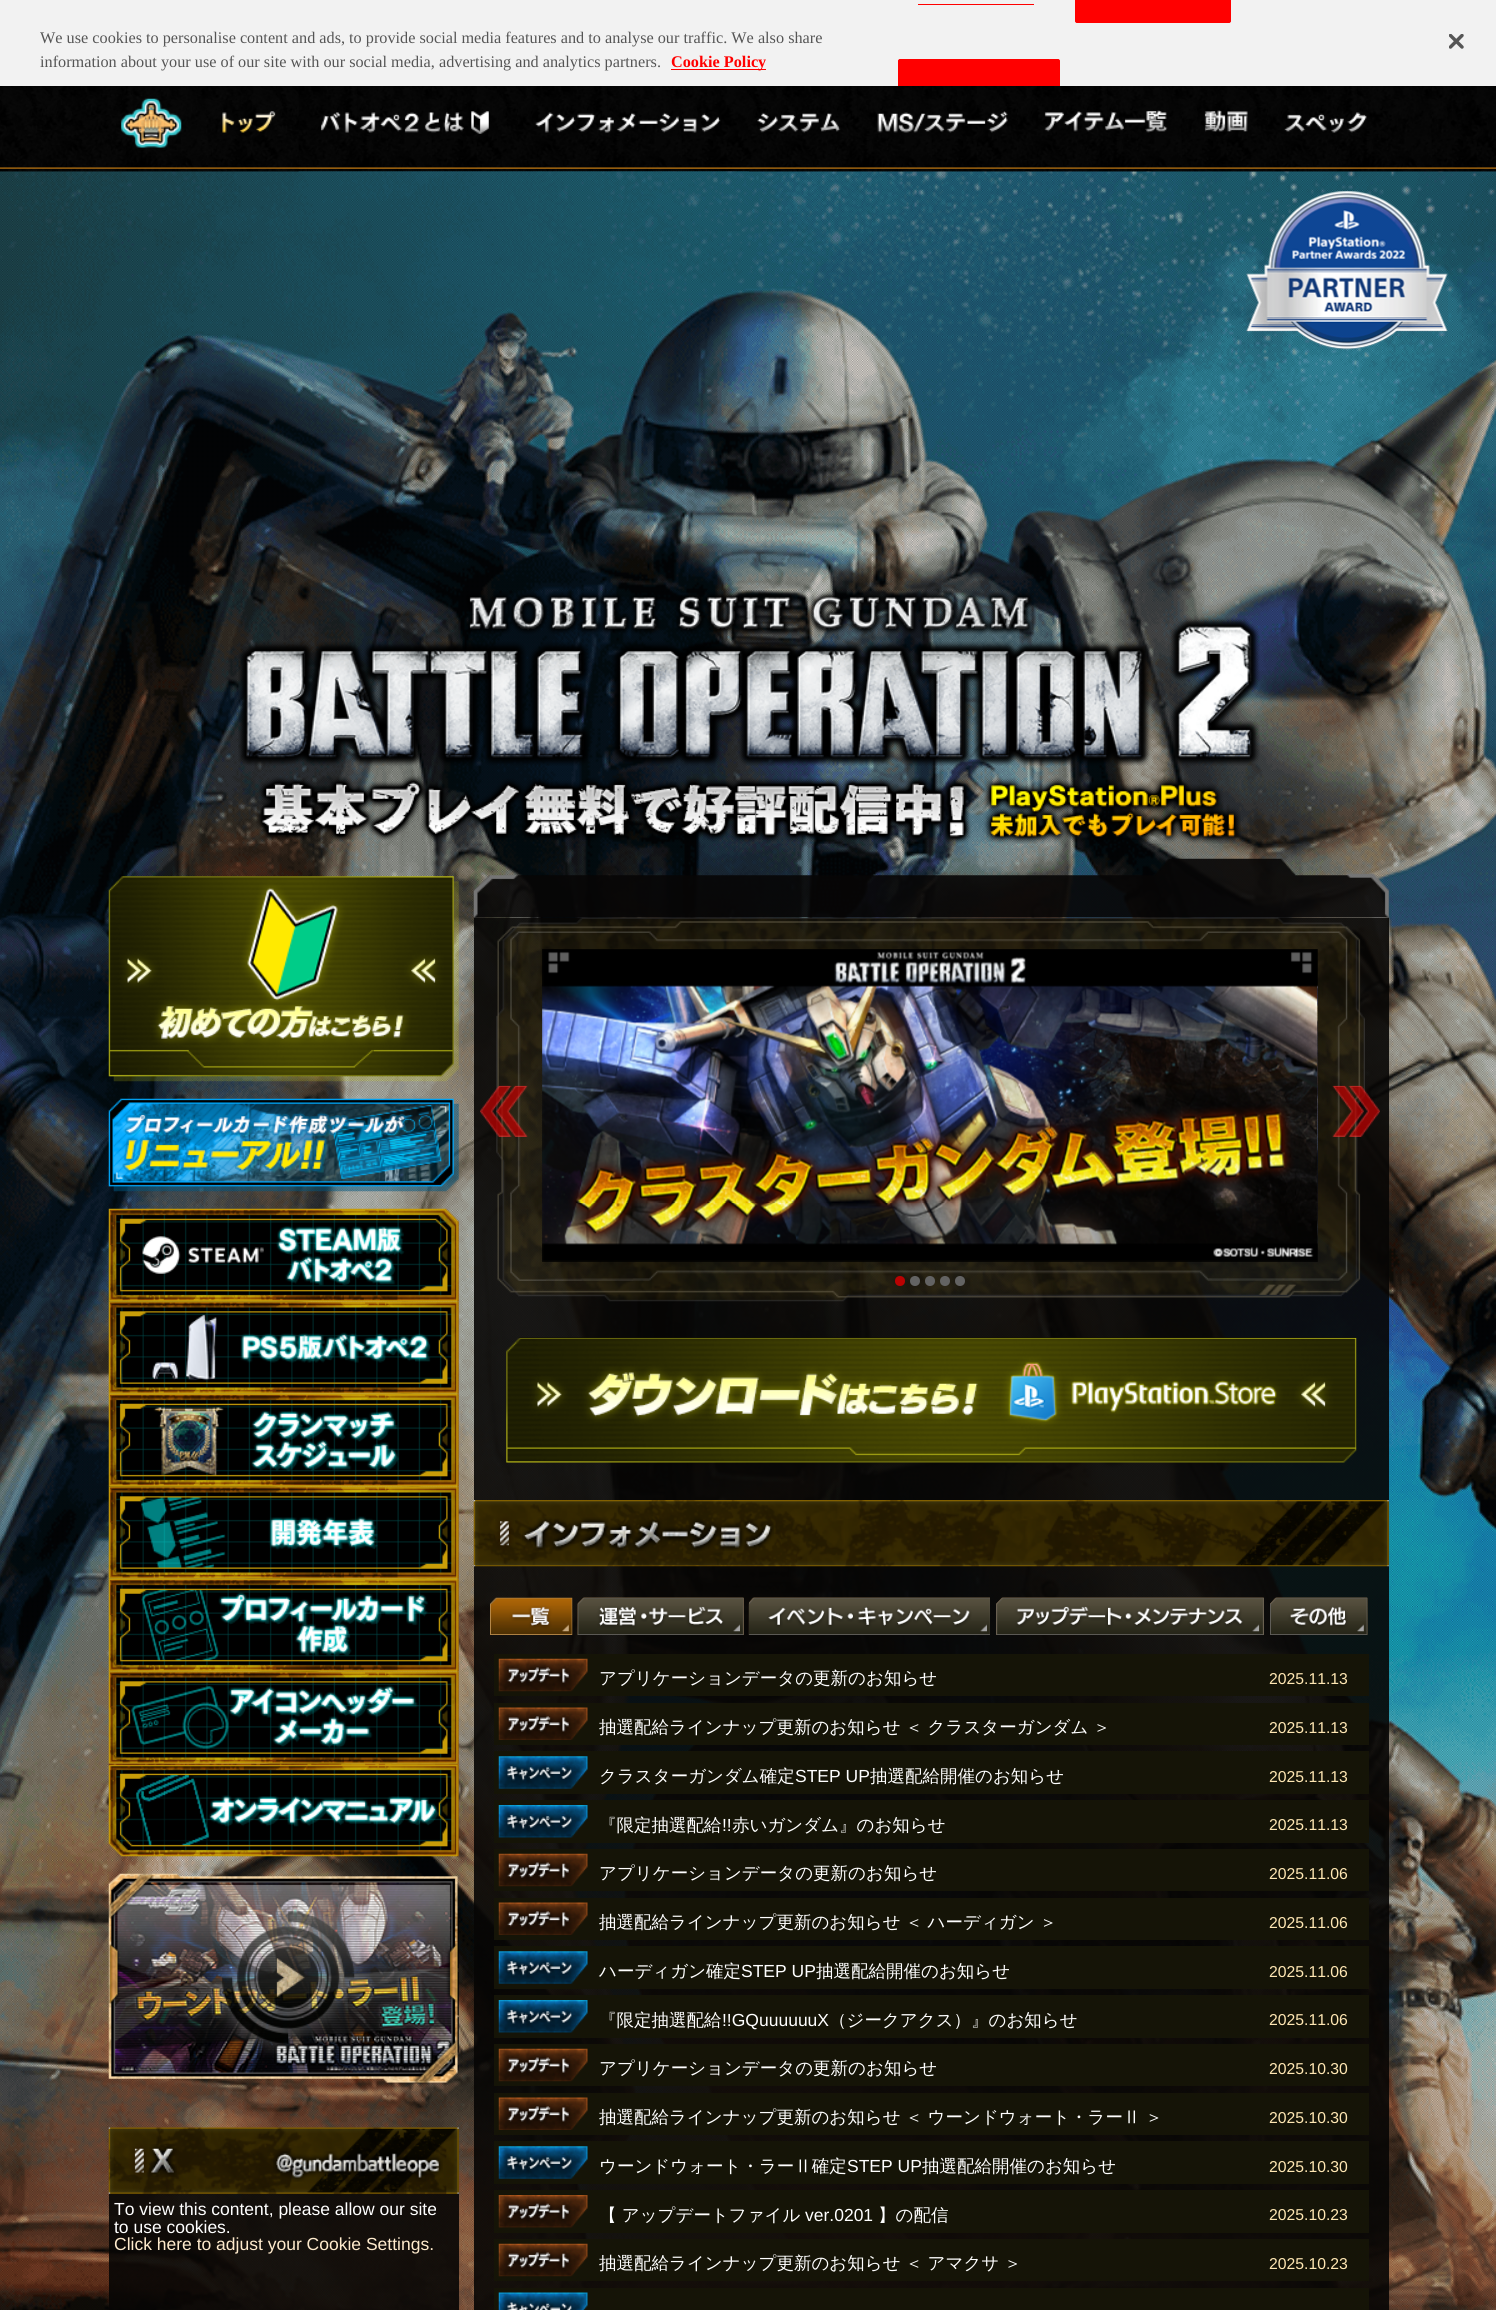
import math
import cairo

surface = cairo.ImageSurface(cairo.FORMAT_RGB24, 1496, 2310)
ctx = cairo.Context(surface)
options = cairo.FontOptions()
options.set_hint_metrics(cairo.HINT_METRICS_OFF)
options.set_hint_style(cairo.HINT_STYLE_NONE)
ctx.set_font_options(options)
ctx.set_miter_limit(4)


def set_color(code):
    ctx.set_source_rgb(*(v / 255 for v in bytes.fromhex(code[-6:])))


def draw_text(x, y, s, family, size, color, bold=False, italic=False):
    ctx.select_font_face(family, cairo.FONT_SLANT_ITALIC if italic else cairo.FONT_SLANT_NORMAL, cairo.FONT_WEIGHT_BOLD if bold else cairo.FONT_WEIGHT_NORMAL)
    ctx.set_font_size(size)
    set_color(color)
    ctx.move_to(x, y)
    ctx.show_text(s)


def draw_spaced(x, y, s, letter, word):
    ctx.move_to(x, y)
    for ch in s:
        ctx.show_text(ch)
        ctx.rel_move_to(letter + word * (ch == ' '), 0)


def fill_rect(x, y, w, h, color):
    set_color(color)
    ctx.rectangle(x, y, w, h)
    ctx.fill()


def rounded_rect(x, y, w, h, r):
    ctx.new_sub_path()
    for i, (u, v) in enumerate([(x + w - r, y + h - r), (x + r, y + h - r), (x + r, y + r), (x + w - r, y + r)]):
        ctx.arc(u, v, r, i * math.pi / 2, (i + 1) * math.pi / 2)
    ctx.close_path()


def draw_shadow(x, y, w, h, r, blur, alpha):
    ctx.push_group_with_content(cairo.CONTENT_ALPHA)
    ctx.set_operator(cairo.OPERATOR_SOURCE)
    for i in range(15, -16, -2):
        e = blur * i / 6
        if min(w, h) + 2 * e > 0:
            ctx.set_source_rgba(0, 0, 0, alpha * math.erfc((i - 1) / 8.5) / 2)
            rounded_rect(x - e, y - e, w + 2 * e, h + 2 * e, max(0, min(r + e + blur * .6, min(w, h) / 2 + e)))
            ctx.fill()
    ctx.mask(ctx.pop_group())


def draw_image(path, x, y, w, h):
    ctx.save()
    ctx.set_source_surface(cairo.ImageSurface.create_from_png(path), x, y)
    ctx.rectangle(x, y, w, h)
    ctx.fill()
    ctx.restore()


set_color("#ffffff")
ctx.paint()
draw_image("assets/img14.png", 0, 171, 1496, 2139)
draw_image("assets/img2.png", 0, 86, 1496, 86)
draw_image("assets/img3.png", 0, 86, 299, 86)
draw_image("assets/img4.png", 121, 98, 61, 50)
draw_image("assets/img5.png", 222, 111, 54, 22)
draw_image("assets/img6.png", 321, 111, 168, 23)
draw_image("assets/img7.png", 535, 112, 186, 21)
draw_image("assets/img8.png", 757, 112, 84, 21)
draw_image("assets/img9.png", 877, 111, 131, 22)
draw_image("assets/img10.png", 1044, 110, 124, 23)
draw_image("assets/img11.png", 1204, 110, 44, 22)
draw_image("assets/img12.png", 1284, 112, 83, 21)
set_color("#000000")
draw_shadow(0, 0, 1496, 86, 0, 11, 0.2)
fill_rect(0, 0, 1496, 86, "#f2f2f2")
draw_text(40, 43, "We use cookies to personalise content and ads, to provide social media features and to analyse our traffic. We also share", "Liberation Serif", 16.25, "#555555")
draw_text(40, 67, "information about your use of our site with our social media, advertising and analytics partners.", "Liberation Serif", 16.25, "#555555")
fill_rect(671, 69, 95, 1, "#ff0000")
draw_text(671, 67, "Cookie Policy", "Liberation Serif", 16.25, "#ff0000", bold=True)
fill_rect(918, 4, 116, 1, "#ff0000")
ctx.new_path()
ctx.move_to(1075, 0)
ctx.line_to(1231, 0)
ctx.line_to(1231, 20.5)
ctx.curve_to(1231, 22, 1230, 23, 1228.5, 23)
ctx.line_to(1077.5, 23)
ctx.curve_to(1076, 23, 1075, 22, 1075, 20.5)
ctx.close_path()
ctx.fill()
rounded_rect(1075.5, -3.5, 155, 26, 2)
ctx.set_line_width(1)
ctx.stroke()
ctx.new_path()
ctx.move_to(900.5, 59)
ctx.line_to(1057.5, 59)
ctx.curve_to(1059, 59, 1060, 60, 1060, 61.5)
ctx.line_to(1060, 86)
ctx.line_to(898, 86)
ctx.line_to(898, 61.5)
ctx.curve_to(898, 60, 899, 59, 900.5, 59)
ctx.close_path()
ctx.fill()
ctx.save()
ctx.rectangle(0, 0, 1496, 86)
ctx.clip()
rounded_rect(898.5, 59.5, 161, 51, 2)
ctx.stroke()
ctx.restore()
draw_image("assets/img1.png", 1449, 34, 15, 15)
draw_image("assets/img13.png", 748, 168, 748, 4)
draw_image("assets/img15.png", 1246, 191, 202, 159)
draw_image("assets/img16.png", 238, 591, 1022, 175)
draw_image("assets/img17.png", 256, 775, 985, 69)
draw_image("assets/img18.png", 108, 876, 351, 206)
draw_image("assets/img19.png", 108, 1098, 351, 94)
draw_image("assets/img20.png", 108, 1208, 351, 94)
draw_image("assets/img21.png", 108, 1301, 351, 93)
draw_image("assets/img22.png", 108, 1393, 351, 94)
draw_image("assets/img23.png", 108, 1486, 351, 93)
draw_image("assets/img24.png", 108, 1578, 351, 94)
draw_image("assets/img25.png", 108, 1671, 351, 93)
draw_image("assets/img26.png", 108, 1763, 351, 94)
draw_image("assets/img27.png", 108, 1873, 351, 211)
ctx.set_source_rgba(0.027, 0.024, 0.02, 0.9)
ctx.rectangle(109, 2128, 350, 182)
ctx.fill()
draw_image("assets/img28.png", 108, 2127, 351, 67)
draw_image("assets/img29.png", 149, 2144, 28, 33)
draw_image("assets/img30.png", 273, 2151, 170, 31)
draw_text(114, 2215, "To view this content, please allow our site", "Liberation Sans", 17.5, "#ffffff")
draw_text(114, 2233, "to use cookies.", "Liberation Sans", 17.5, "#ffffff")
draw_text(114, 2250, "Click here to adjust your Cookie Settings.", "Liberation Sans", 17.5, "#ffebcd")
draw_image("assets/img31.png", 473, 858, 916, 60)
ctx.set_source_rgba(0.027, 0.024, 0.02, 0.9)
ctx.rectangle(474, 1338, 915, 162)
ctx.fill()
draw_image("assets/img38.png", 506, 1337, 851, 126)
ctx.rectangle(474, 918, 915, 420)
ctx.fill()
draw_image("assets/img32.png", 496, 917, 869, 385)
draw_image("assets/img33.png", 480, 1085, 48, 52)
draw_image("assets/img34.png", 542, 949, 1, 313)
draw_image("assets/img35.png", 542, 949, 776, 313)
draw_image("assets/img36.png", 1317, 949, 1, 313)
draw_image("assets/img37.png", 1332, 1085, 48, 52)
set_color("#ba0202")
ctx.arc(900, 1281, 5, 0, 2 * math.pi)
ctx.fill()
set_color("#636363")
ctx.arc(915, 1281, 5, 0, 2 * math.pi)
ctx.fill()
ctx.arc(930, 1281, 5, 0, 2 * math.pi)
ctx.fill()
ctx.arc(945, 1281, 5, 0, 2 * math.pi)
ctx.fill()
ctx.arc(960, 1281, 5, 0, 2 * math.pi)
ctx.fill()
ctx.set_source_rgba(0.027, 0.024, 0.02, 0.9)
ctx.rectangle(474, 1500, 915, 810)
ctx.fill()
draw_image("assets/img39.png", 473, 1500, 916, 67)
draw_image("assets/img40.png", 522, 1517, 252, 34)
draw_image("assets/img41.png", 490, 1597, 83, 38)
draw_image("assets/img42.png", 577, 1597, 167, 38)
draw_image("assets/img43.png", 577, 1597, 167, 38)
draw_image("assets/img44.png", 748, 1597, 242, 38)
draw_image("assets/img45.png", 748, 1597, 242, 38)
draw_image("assets/img46.png", 996, 1597, 268, 38)
draw_image("assets/img47.png", 996, 1597, 268, 38)
draw_image("assets/img48.png", 1270, 1597, 98, 38)
draw_image("assets/img49.png", 1270, 1597, 98, 38)
fill_rect(494, 1654, 875, 42, "#151407")
draw_image("assets/img50.png", 498, 1658, 90, 34)
draw_text(599, 1684, "アプリケーションデータの更新のお知らせ", "WenQuanYi Zen Hei Medium", 17.5, "#ffffff")
draw_text(1269, 1684, "2025.11.13", "Liberation Sans", 15.75, "#ffe7b3")
fill_rect(494, 1703, 875, 42, "#151407")
draw_image("assets/img51.png", 498, 1707, 90, 33)
ctx.select_font_face("WenQuanYi Zen Hei Medium")
ctx.set_font_size(17.5)
set_color("#ffffff")
draw_spaced(599, 1733, "抽選配給ラインナップ更新のお知らせ ＜ クラスターガンダム ＞", 0, -0.5)
draw_text(1269, 1733, "2025.11.13", "Liberation Sans", 15.75, "#ffe7b3")
fill_rect(494, 1751, 875, 43, "#151407")
draw_image("assets/img52.png", 498, 1756, 90, 33)
draw_text(599, 1782, "クラスターガンダム確定", "WenQuanYi Zen Hei Medium", 17.5, "#ffffff")
draw_text(795, 1782, "STEP UP", "Liberation Sans", 17.5, "#ffffff")
draw_text(870, 1782, "抽選配給開催のお知らせ", "WenQuanYi Zen Hei Medium", 17.5, "#ffffff")
draw_text(1269, 1782, "2025.11.13", "Liberation Sans", 15.75, "#ffe7b3")
fill_rect(494, 1800, 875, 43, "#151407")
draw_image("assets/img53.png", 498, 1805, 90, 33)
draw_text(599, 1831, "『限定抽選配給", "WenQuanYi Zen Hei Medium", 17.5, "#ffffff")
draw_text(722, 1831, "!!", "Liberation Sans", 17.5, "#ffffff")
draw_text(732, 1831, "赤いガンダム』のお知らせ", "WenQuanYi Zen Hei Medium", 17.5, "#ffffff")
draw_text(1269, 1830, "2025.11.13", "Liberation Sans", 15.75, "#ffe7b3")
fill_rect(494, 1849, 875, 42, "#151407")
draw_image("assets/img54.png", 498, 1853, 90, 34)
draw_text(599, 1879, "アプリケーションデータの更新のお知らせ", "WenQuanYi Zen Hei Medium", 17.5, "#ffffff")
draw_text(1269, 1879, "2025.11.06", "Liberation Sans", 15.75, "#ffe7b3")
fill_rect(494, 1898, 875, 42, "#151407")
draw_image("assets/img51.png", 498, 1902, 90, 33)
ctx.select_font_face("WenQuanYi Zen Hei Medium")
ctx.set_font_size(17.5)
set_color("#ffffff")
draw_spaced(599, 1928, "抽選配給ラインナップ更新のお知らせ ＜ ハーディガン ＞", 0, -0.5)
draw_text(1269, 1928, "2025.11.06", "Liberation Sans", 15.75, "#ffe7b3")
fill_rect(494, 1946, 875, 43, "#151407")
draw_image("assets/img52.png", 498, 1951, 90, 33)
draw_text(599, 1977, "ハーディガン確定", "WenQuanYi Zen Hei Medium", 17.5, "#ffffff")
draw_text(741, 1977, "STEP UP", "Liberation Sans", 17.5, "#ffffff")
draw_text(816, 1977, "抽選配給開催のお知らせ", "WenQuanYi Zen Hei Medium", 17.5, "#ffffff")
draw_text(1269, 1977, "2025.11.06", "Liberation Sans", 15.75, "#ffe7b3")
fill_rect(494, 1995, 875, 43, "#151407")
draw_image("assets/img53.png", 498, 2000, 90, 33)
draw_text(599, 2026, "『限定抽選配給", "WenQuanYi Zen Hei Medium", 17.5, "#ffffff")
draw_text(722, 2026, "!!GQuuuuuuX", "Liberation Sans", 17.5, "#ffffff")
draw_text(829, 2026, "（ジークアクス）』のお知らせ", "WenQuanYi Zen Hei Medium", 17.5, "#ffffff")
draw_text(1269, 2025, "2025.11.06", "Liberation Sans", 15.75, "#ffe7b3")
fill_rect(494, 2044, 875, 42, "#151407")
draw_image("assets/img55.png", 498, 2048, 90, 34)
draw_text(599, 2074, "アプリケーションデータの更新のお知らせ", "WenQuanYi Zen Hei Medium", 17.5, "#ffffff")
draw_text(1269, 2074, "2025.10.30", "Liberation Sans", 15.75, "#ffe7b3")
fill_rect(494, 2093, 875, 42, "#151407")
draw_image("assets/img51.png", 498, 2097, 90, 33)
ctx.select_font_face("WenQuanYi Zen Hei Medium")
ctx.set_font_size(17.5)
set_color("#ffffff")
draw_spaced(599, 2123, "抽選配給ラインナップ更新のお知らせ ＜ ウーンドウォート・ラーⅡ ＞", 0, -0.5)
draw_text(1269, 2123, "2025.10.30", "Liberation Sans", 15.75, "#ffe7b3")
fill_rect(494, 2141, 875, 43, "#151407")
draw_image("assets/img52.png", 498, 2146, 90, 33)
draw_text(599, 2172, "ウーンドウォート・ラーⅡ確定", "WenQuanYi Zen Hei Medium", 17.5, "#ffffff")
draw_text(847, 2172, "STEP UP", "Liberation Sans", 17.5, "#ffffff")
draw_text(922, 2172, "抽選配給開催のお知らせ", "WenQuanYi Zen Hei Medium", 17.5, "#ffffff")
draw_text(1269, 2172, "2025.10.30", "Liberation Sans", 15.75, "#ffe7b3")
fill_rect(494, 2190, 875, 43, "#151407")
draw_image("assets/img56.png", 498, 2195, 90, 33)
draw_text(599, 2221, "【 アップデートファイル", "WenQuanYi Zen Hei Medium", 17.5, "#ffffff")
draw_text(805, 2221, "ver.0201", "Liberation Sans", 17.5, "#ffffff")
draw_text(878, 2221, "】の配信", "WenQuanYi Zen Hei Medium", 17.5, "#ffffff")
draw_text(1269, 2220, "2025.10.23", "Liberation Sans", 15.75, "#ffe7b3")
fill_rect(494, 2239, 875, 42, "#151407")
draw_image("assets/img50.png", 498, 2243, 90, 34)
ctx.select_font_face("WenQuanYi Zen Hei Medium")
ctx.set_font_size(17.5)
set_color("#ffffff")
draw_spaced(599, 2269, "抽選配給ラインナップ更新のお知らせ ＜ アマクサ ＞", 0, -0.5)
draw_text(1269, 2269, "2025.10.23", "Liberation Sans", 15.75, "#ffe7b3")
fill_rect(494, 2288, 875, 22, "#151407")
draw_image("assets/img57.png", 498, 2292, 90, 18)
surface.write_to_png("output.png")
